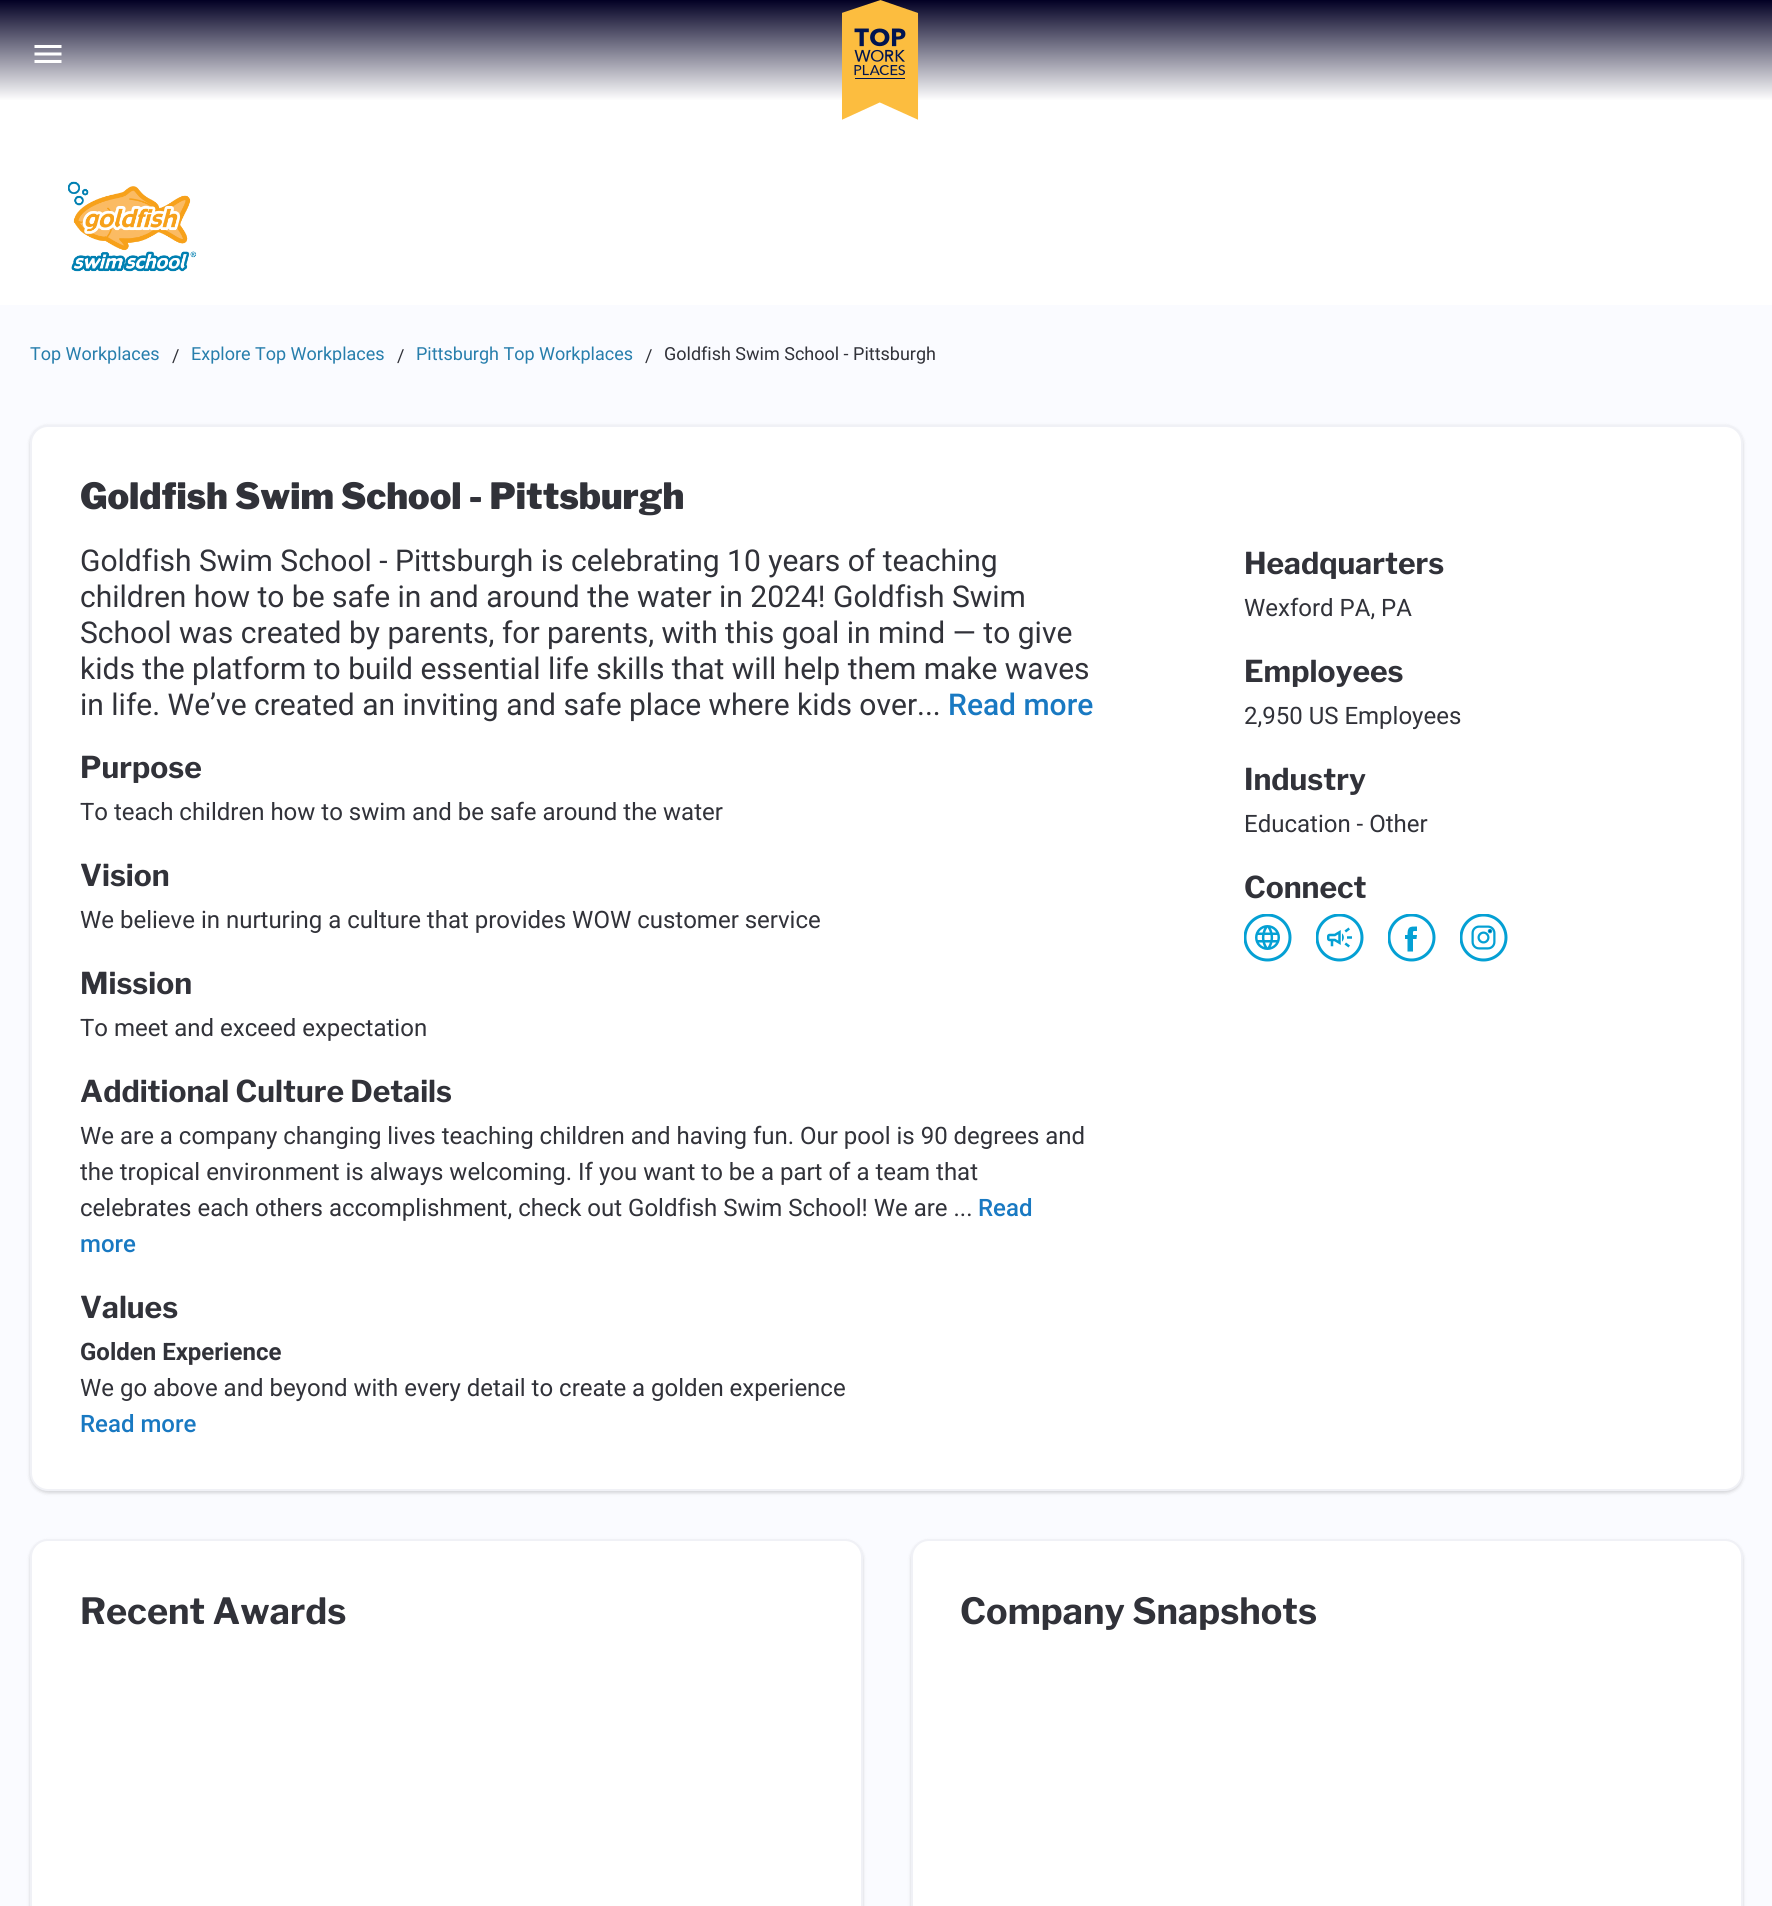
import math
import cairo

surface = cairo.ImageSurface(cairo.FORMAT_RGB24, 1772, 1906)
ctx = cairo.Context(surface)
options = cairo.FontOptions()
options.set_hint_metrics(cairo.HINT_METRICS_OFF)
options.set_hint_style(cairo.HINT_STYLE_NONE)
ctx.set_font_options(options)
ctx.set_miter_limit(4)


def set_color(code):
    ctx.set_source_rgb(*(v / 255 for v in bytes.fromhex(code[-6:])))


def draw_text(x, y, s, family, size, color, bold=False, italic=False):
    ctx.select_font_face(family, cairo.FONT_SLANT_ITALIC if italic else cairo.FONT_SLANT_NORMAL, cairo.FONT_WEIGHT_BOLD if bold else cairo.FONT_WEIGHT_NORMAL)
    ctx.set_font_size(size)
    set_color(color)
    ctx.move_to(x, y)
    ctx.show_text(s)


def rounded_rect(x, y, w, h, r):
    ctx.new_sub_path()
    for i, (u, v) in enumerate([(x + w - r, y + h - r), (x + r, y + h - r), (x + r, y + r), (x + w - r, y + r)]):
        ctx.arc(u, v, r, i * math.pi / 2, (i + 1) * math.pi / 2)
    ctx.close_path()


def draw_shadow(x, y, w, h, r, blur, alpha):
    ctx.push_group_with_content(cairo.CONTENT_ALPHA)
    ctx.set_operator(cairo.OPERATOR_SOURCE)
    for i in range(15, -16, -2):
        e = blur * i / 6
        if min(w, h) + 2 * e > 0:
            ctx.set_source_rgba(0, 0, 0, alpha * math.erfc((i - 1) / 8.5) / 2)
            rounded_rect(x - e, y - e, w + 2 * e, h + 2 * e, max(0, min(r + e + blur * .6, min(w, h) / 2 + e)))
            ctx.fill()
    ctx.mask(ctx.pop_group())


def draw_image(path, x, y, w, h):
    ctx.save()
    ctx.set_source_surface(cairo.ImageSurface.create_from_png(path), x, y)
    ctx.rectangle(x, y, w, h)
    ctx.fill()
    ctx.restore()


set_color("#fafbff")
ctx.paint()
gradient = cairo.LinearGradient(887, 0, 887, 305)
gradient.add_color_stop_rgba(0, 0.008, 0, 0.141, 1)
gradient.add_color_stop_rgba(0.33, 1, 1, 1, 1)
ctx.set_source(gradient)
ctx.rectangle(0, 0, 1772, 305)
ctx.fill()
draw_image("assets/img1.png", 34, 45, 28, 18)
draw_image("assets/img2.png", 842, 0, 77, 120)
draw_image("assets/img3.png", 68, 181, 129, 91)
draw_text(30, 360, "Top Workplaces", "Roboto", 18, "#277eac")
draw_text(172, 362, "/", "Roboto", 18, "#313239")
draw_text(191, 360, "Explore Top Workplaces", "Roboto", 18, "#277eac")
draw_text(397, 362, "/", "Roboto", 18, "#313239")
draw_text(416, 360, "Pittsburgh Top Workplaces", "Roboto", 18, "#277eac")
draw_text(645, 362, "/", "Roboto", 18, "#313239")
draw_text(664, 360, "Goldfish Swim School - Pittsburgh", "Roboto", 18, "#313239")
set_color("#000000")
draw_shadow(30, 426, 1713, 1067, 18, 1.5, 0.06)
draw_shadow(30, 426, 1713, 1067, 18, 2, 0.1)
set_color("#ffffff")
rounded_rect(31, 426, 1711, 1064, 17)
ctx.fill_preserve()
set_color("#f0f1f6")
ctx.stroke()
draw_text(80, 509, "Goldfish Swim School - Pittsburgh", "Libre Franklin Black", 36, "#313239")
draw_text(80, 571, "Goldfish Swim School - Pittsburgh is celebrating 10 years of teaching", "Roboto", 30, "#313239")
draw_text(80, 607, "children how to be safe in and around the water in 2024! Goldfish Swim", "Roboto", 30, "#313239")
draw_text(80, 643, "School was created by parents, for parents, with this goal in mind — to give", "Roboto", 30, "#313239")
draw_text(80, 679, "kids the platform to build essential life skills that will help them make waves", "Roboto", 30, "#313239")
draw_text(80, 715, "in life. We’ve created an inviting and safe place where kids over...", "Roboto", 30, "#313239")
draw_text(948, 715, "Read more", "Roboto Medium", 30, "#1979c2")
draw_text(80, 778, "Purpose", "Libre Franklin", 30, "#313239", bold=True)
draw_text(80, 820, "To teach children how to swim and be safe around the water", "Roboto", 24, "#313239")
draw_text(80, 886, "Vision", "Libre Franklin", 30, "#313239", bold=True)
draw_text(80, 928, "We believe in nurturing a culture that provides WOW customer service", "Roboto", 24, "#313239")
draw_text(80, 994, "Mission", "Libre Franklin", 30, "#313239", bold=True)
draw_text(80, 1036, "To meet and exceed expectation", "Roboto", 24, "#313239")
draw_text(80, 1102, "Additional Culture Details", "Libre Franklin", 30, "#313239", bold=True)
draw_text(80, 1144, "We are a company changing lives teaching children and having fun. Our pool is 90 degrees and", "Roboto", 24, "#313239")
draw_text(80, 1180, "the tropical environment is always welcoming. If you want to be a part of a team that", "Roboto", 24, "#313239")
draw_text(80, 1216, "celebrates each others accomplishment, check out Goldfish Swim School! We are ...", "Roboto", 24, "#313239")
draw_text(978, 1216, "Read", "Roboto Medium", 24, "#1979c2")
draw_text(80, 1252, "more", "Roboto Medium", 24, "#1979c2")
draw_text(80, 1318, "Values", "Libre Franklin", 30, "#313239", bold=True)
draw_text(80, 1360, "Golden Experience", "Roboto", 24, "#313239", bold=True)
draw_text(80, 1396, "We go above and beyond with every detail to create a golden experience", "Roboto", 24, "#313239")
draw_text(80, 1432, "Read more", "Roboto Medium", 24, "#1979c2")
draw_text(1244, 574, "Headquarters", "Libre Franklin", 30, "#313239", bold=True)
draw_text(1244, 616, "Wexford PA, PA", "Roboto", 24, "#313239")
draw_text(1244, 682, "Employees", "Libre Franklin", 30, "#313239", bold=True)
draw_text(1244, 724, "2,950 US Employees", "Roboto", 24, "#313239")
draw_text(1244, 790, "Industry", "Libre Franklin", 30, "#313239", bold=True)
draw_text(1244, 832, "Education - Other", "Roboto", 24, "#313239")
draw_text(1244, 898, "Connect", "Libre Franklin", 30, "#313239", bold=True)
draw_image("assets/img4.png", 1244, 914, 48, 48)
draw_image("assets/img5.png", 1316, 914, 48, 48)
ctx.save()
ctx.rectangle(1388, 914, 48, 48)
ctx.clip()
ctx.arc(1411.5, 937.5, 22.5, 0, 2 * math.pi)
set_color("#04a0d4")
ctx.set_line_width(3)
ctx.stroke()
ctx.restore()
set_color("#04a0d4")
ctx.set_fill_rule(cairo.FILL_RULE_EVEN_ODD)
ctx.new_path()
ctx.move_to(1413, 951.5)
ctx.line_to(1407.5, 951.5)
ctx.line_to(1407.5, 939)
ctx.line_to(1405, 939)
ctx.line_to(1405, 935)
ctx.line_to(1407.5, 935)
ctx.curve_to(1407.5, 926.5, 1409.5, 926.5, 1417, 926.5)
ctx.line_to(1417, 931)
ctx.curve_to(1412.5, 931, 1413, 930.5, 1413, 935)
ctx.line_to(1417, 935)
ctx.line_to(1416.5, 939)
ctx.line_to(1413, 939)
ctx.close_path()
ctx.fill()
draw_image("assets/img6.png", 1460, 914, 48, 48)
set_color("#000000")
draw_shadow(30, 1541, 833, 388, 18, 1.5, 0.06)
draw_shadow(30, 1541, 833, 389, 18, 2, 0.1)
set_color("#ffffff")
rounded_rect(31, 1540, 831, 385, 17)
ctx.fill_preserve()
set_color("#f0f1f6")
ctx.stroke()
draw_text(80, 1624, "Recent Awards", "Libre Franklin", 36, "#313239", bold=True)
set_color("#000000")
draw_shadow(911, 1541, 832, 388, 18, 1.5, 0.06)
draw_shadow(911, 1541, 832, 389, 18, 2, 0.1)
set_color("#ffffff")
rounded_rect(912, 1540, 830, 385, 17)
ctx.fill_preserve()
set_color("#f0f1f6")
ctx.stroke()
draw_text(960, 1624, "Company Snapshots", "Libre Franklin", 36, "#313239", bold=True)
surface.write_to_png("output.png")
